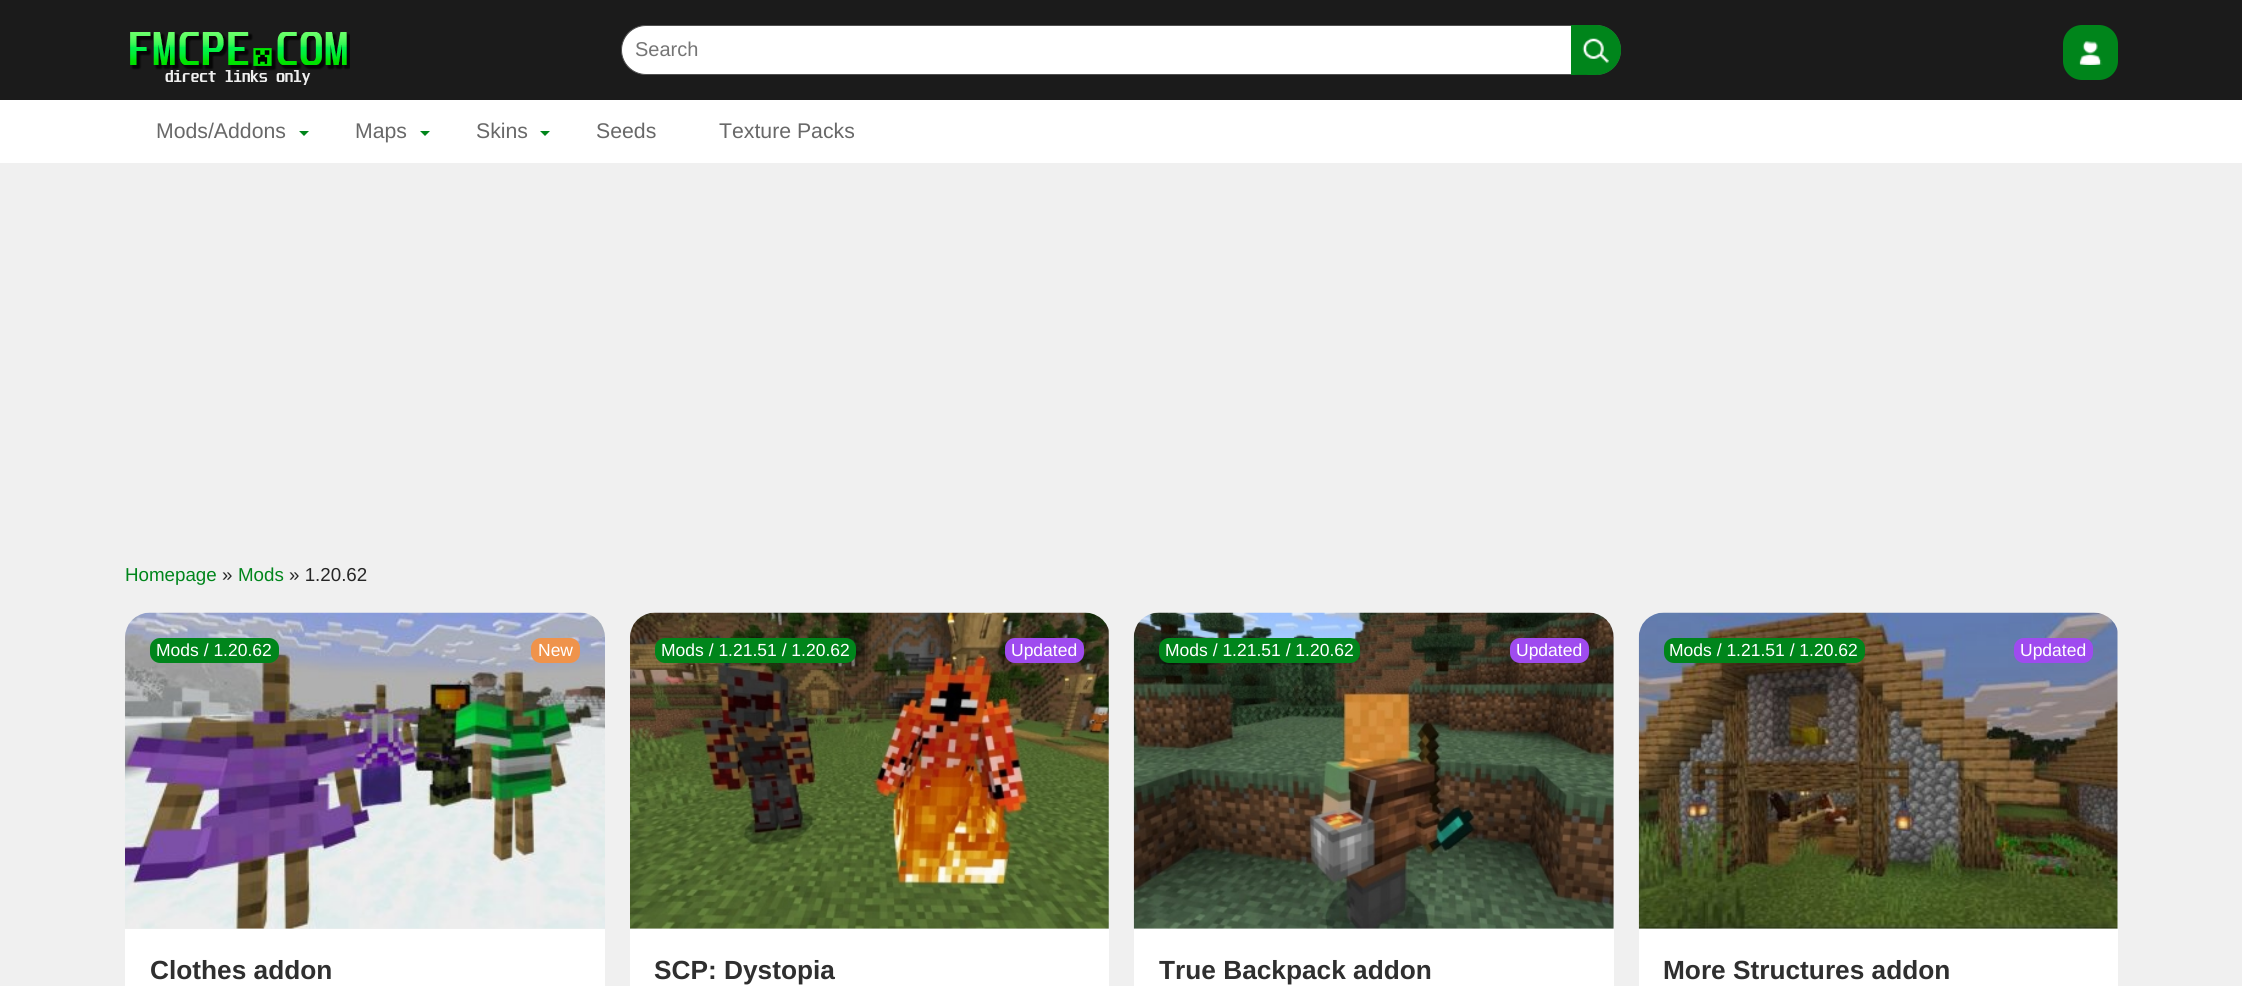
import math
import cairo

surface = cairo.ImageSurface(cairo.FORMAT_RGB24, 2242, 986)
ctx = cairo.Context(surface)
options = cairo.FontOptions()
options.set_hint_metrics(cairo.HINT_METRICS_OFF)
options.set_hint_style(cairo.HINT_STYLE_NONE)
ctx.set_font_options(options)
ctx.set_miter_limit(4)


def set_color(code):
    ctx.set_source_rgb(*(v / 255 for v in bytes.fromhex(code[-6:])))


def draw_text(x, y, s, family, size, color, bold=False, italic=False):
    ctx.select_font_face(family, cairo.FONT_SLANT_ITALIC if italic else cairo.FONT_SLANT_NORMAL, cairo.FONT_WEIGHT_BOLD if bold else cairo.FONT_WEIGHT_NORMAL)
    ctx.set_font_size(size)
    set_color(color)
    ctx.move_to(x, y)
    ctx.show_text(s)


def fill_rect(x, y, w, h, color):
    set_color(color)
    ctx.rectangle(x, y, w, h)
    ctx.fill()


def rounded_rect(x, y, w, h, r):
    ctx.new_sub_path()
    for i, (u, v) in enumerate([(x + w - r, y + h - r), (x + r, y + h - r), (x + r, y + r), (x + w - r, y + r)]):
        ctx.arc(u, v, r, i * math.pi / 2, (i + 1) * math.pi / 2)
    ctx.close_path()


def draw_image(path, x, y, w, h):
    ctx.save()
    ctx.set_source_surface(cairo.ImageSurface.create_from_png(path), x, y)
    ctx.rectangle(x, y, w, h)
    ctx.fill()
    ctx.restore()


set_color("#f0f0f0")
ctx.paint()
fill_rect(0, 0, 2242, 100, "#1b1b1b")
draw_image("assets/img1.png", 130, 32, 220, 53)
set_color("#ffffff")
rounded_rect(621.5, 25.5, 999, 49, 24.5)
ctx.fill_preserve()
set_color("#505050")
ctx.set_line_width(1)
ctx.stroke()
draw_text(635, 56, "Search", "Liberation Sans", 20, "#757575")
set_color("#00851b")
ctx.new_path()
ctx.move_to(1571, 25)
ctx.line_to(1596, 25)
ctx.curve_to(1610, 25, 1621, 36, 1621, 50)
ctx.curve_to(1621, 64, 1610, 75, 1596, 75)
ctx.line_to(1571, 75)
ctx.close_path()
ctx.fill()
draw_image("assets/img2.png", 1575, 38, 34, 37)
rounded_rect(2064.5, 26.5, 52, 52, 17.5)
ctx.fill_preserve()
ctx.set_line_width(3)
ctx.stroke()
draw_image("assets/img3.png", 2079, 40, 24, 25)
fill_rect(0, 100, 2242, 63, "#ffffff")
draw_text(156, 138, "Mods/Addons", "Liberation Sans", 21.25, "#686868")
set_color("#00851b")
ctx.new_path()
ctx.move_to(299, 131)
ctx.line_to(309, 131)
ctx.line_to(304, 136)
ctx.close_path()
ctx.fill()
draw_text(355, 138, "Maps", "Liberation Sans", 21.25, "#686868")
set_color("#00851b")
ctx.new_path()
ctx.move_to(420, 131)
ctx.line_to(430, 131)
ctx.line_to(425, 136)
ctx.close_path()
ctx.fill()
draw_text(476, 138, "Skins", "Liberation Sans", 21.25, "#686868")
set_color("#00851b")
ctx.new_path()
ctx.move_to(540, 131)
ctx.line_to(550, 131)
ctx.line_to(545, 136)
ctx.close_path()
ctx.fill()
draw_text(596, 138, "Seeds", "Liberation Sans", 21.25, "#686868")
draw_text(719, 138, "Texture Packs", "Liberation Sans", 21.25, "#686868")
draw_text(125, 581, "Homepage", "Liberation Sans", 18.75, "#00851b")
draw_text(222, 581, "»", "Liberation Sans", 18.75, "#262626")
draw_text(238, 581, "Mods", "Liberation Sans", 18.75, "#00851b")
draw_text(289, 581, "» 1.20.62", "Liberation Sans", 18.75, "#262626")
draw_image("assets/img4.png", 125, 612, 480, 317)
set_color("#00851b")
rounded_rect(150, 638, 129, 25, 10)
ctx.fill()
draw_text(156, 656, "Mods / 1.20.62", "Liberation Sans", 17.5, "#ffffff")
set_color("#ef934b")
rounded_rect(531, 638, 49, 25, 10)
ctx.fill()
draw_text(538, 656, "New", "Liberation Sans", 17.5, "#ffffff")
fill_rect(125, 929, 480, 57, "#ffffff")
draw_text(150, 979, "Clothes addon", "Liberation Sans", 26.25, "#2f2f2f", bold=True)
draw_image("assets/img5.png", 630, 612, 479, 317)
set_color("#00851b")
rounded_rect(655, 638, 201, 25, 10)
ctx.fill()
draw_text(661, 656, "Mods / 1.21.51 / 1.20.62", "Liberation Sans", 17.5, "#ffffff")
set_color("#9f4bef")
rounded_rect(1005, 638, 79, 25, 10)
ctx.fill()
draw_text(1011, 656, "Updated", "Liberation Sans", 17.5, "#ffffff")
fill_rect(630, 929, 479, 57, "#ffffff")
draw_text(654, 979, "SCP: Dystopia", "Liberation Sans", 26.25, "#2f2f2f", bold=True)
draw_image("assets/img6.png", 1133, 612, 481, 317)
set_color("#00851b")
rounded_rect(1159, 638, 201, 25, 10)
ctx.fill()
draw_text(1165, 656, "Mods / 1.21.51 / 1.20.62", "Liberation Sans", 17.5, "#ffffff")
set_color("#9f4bef")
rounded_rect(1510, 638, 79, 25, 10)
ctx.fill()
draw_text(1516, 656, "Updated", "Liberation Sans", 17.5, "#ffffff")
fill_rect(1134, 929, 480, 57, "#ffffff")
draw_text(1159, 979, "True Backpack addon", "Liberation Sans", 26.25, "#2f2f2f", bold=True)
draw_image("assets/img7.png", 1638, 612, 480, 317)
set_color("#00851b")
rounded_rect(1664, 638, 201, 25, 10)
ctx.fill()
draw_text(1669, 656, "Mods / 1.21.51 / 1.20.62", "Liberation Sans", 17.5, "#ffffff")
set_color("#9f4bef")
rounded_rect(2014, 638, 79, 25, 10)
ctx.fill()
draw_text(2020, 656, "Updated", "Liberation Sans", 17.5, "#ffffff")
fill_rect(1639, 929, 479, 57, "#ffffff")
draw_text(1663, 979, "More Structures addon", "Liberation Sans", 26.25, "#2f2f2f", bold=True)
surface.write_to_png("output.png")
